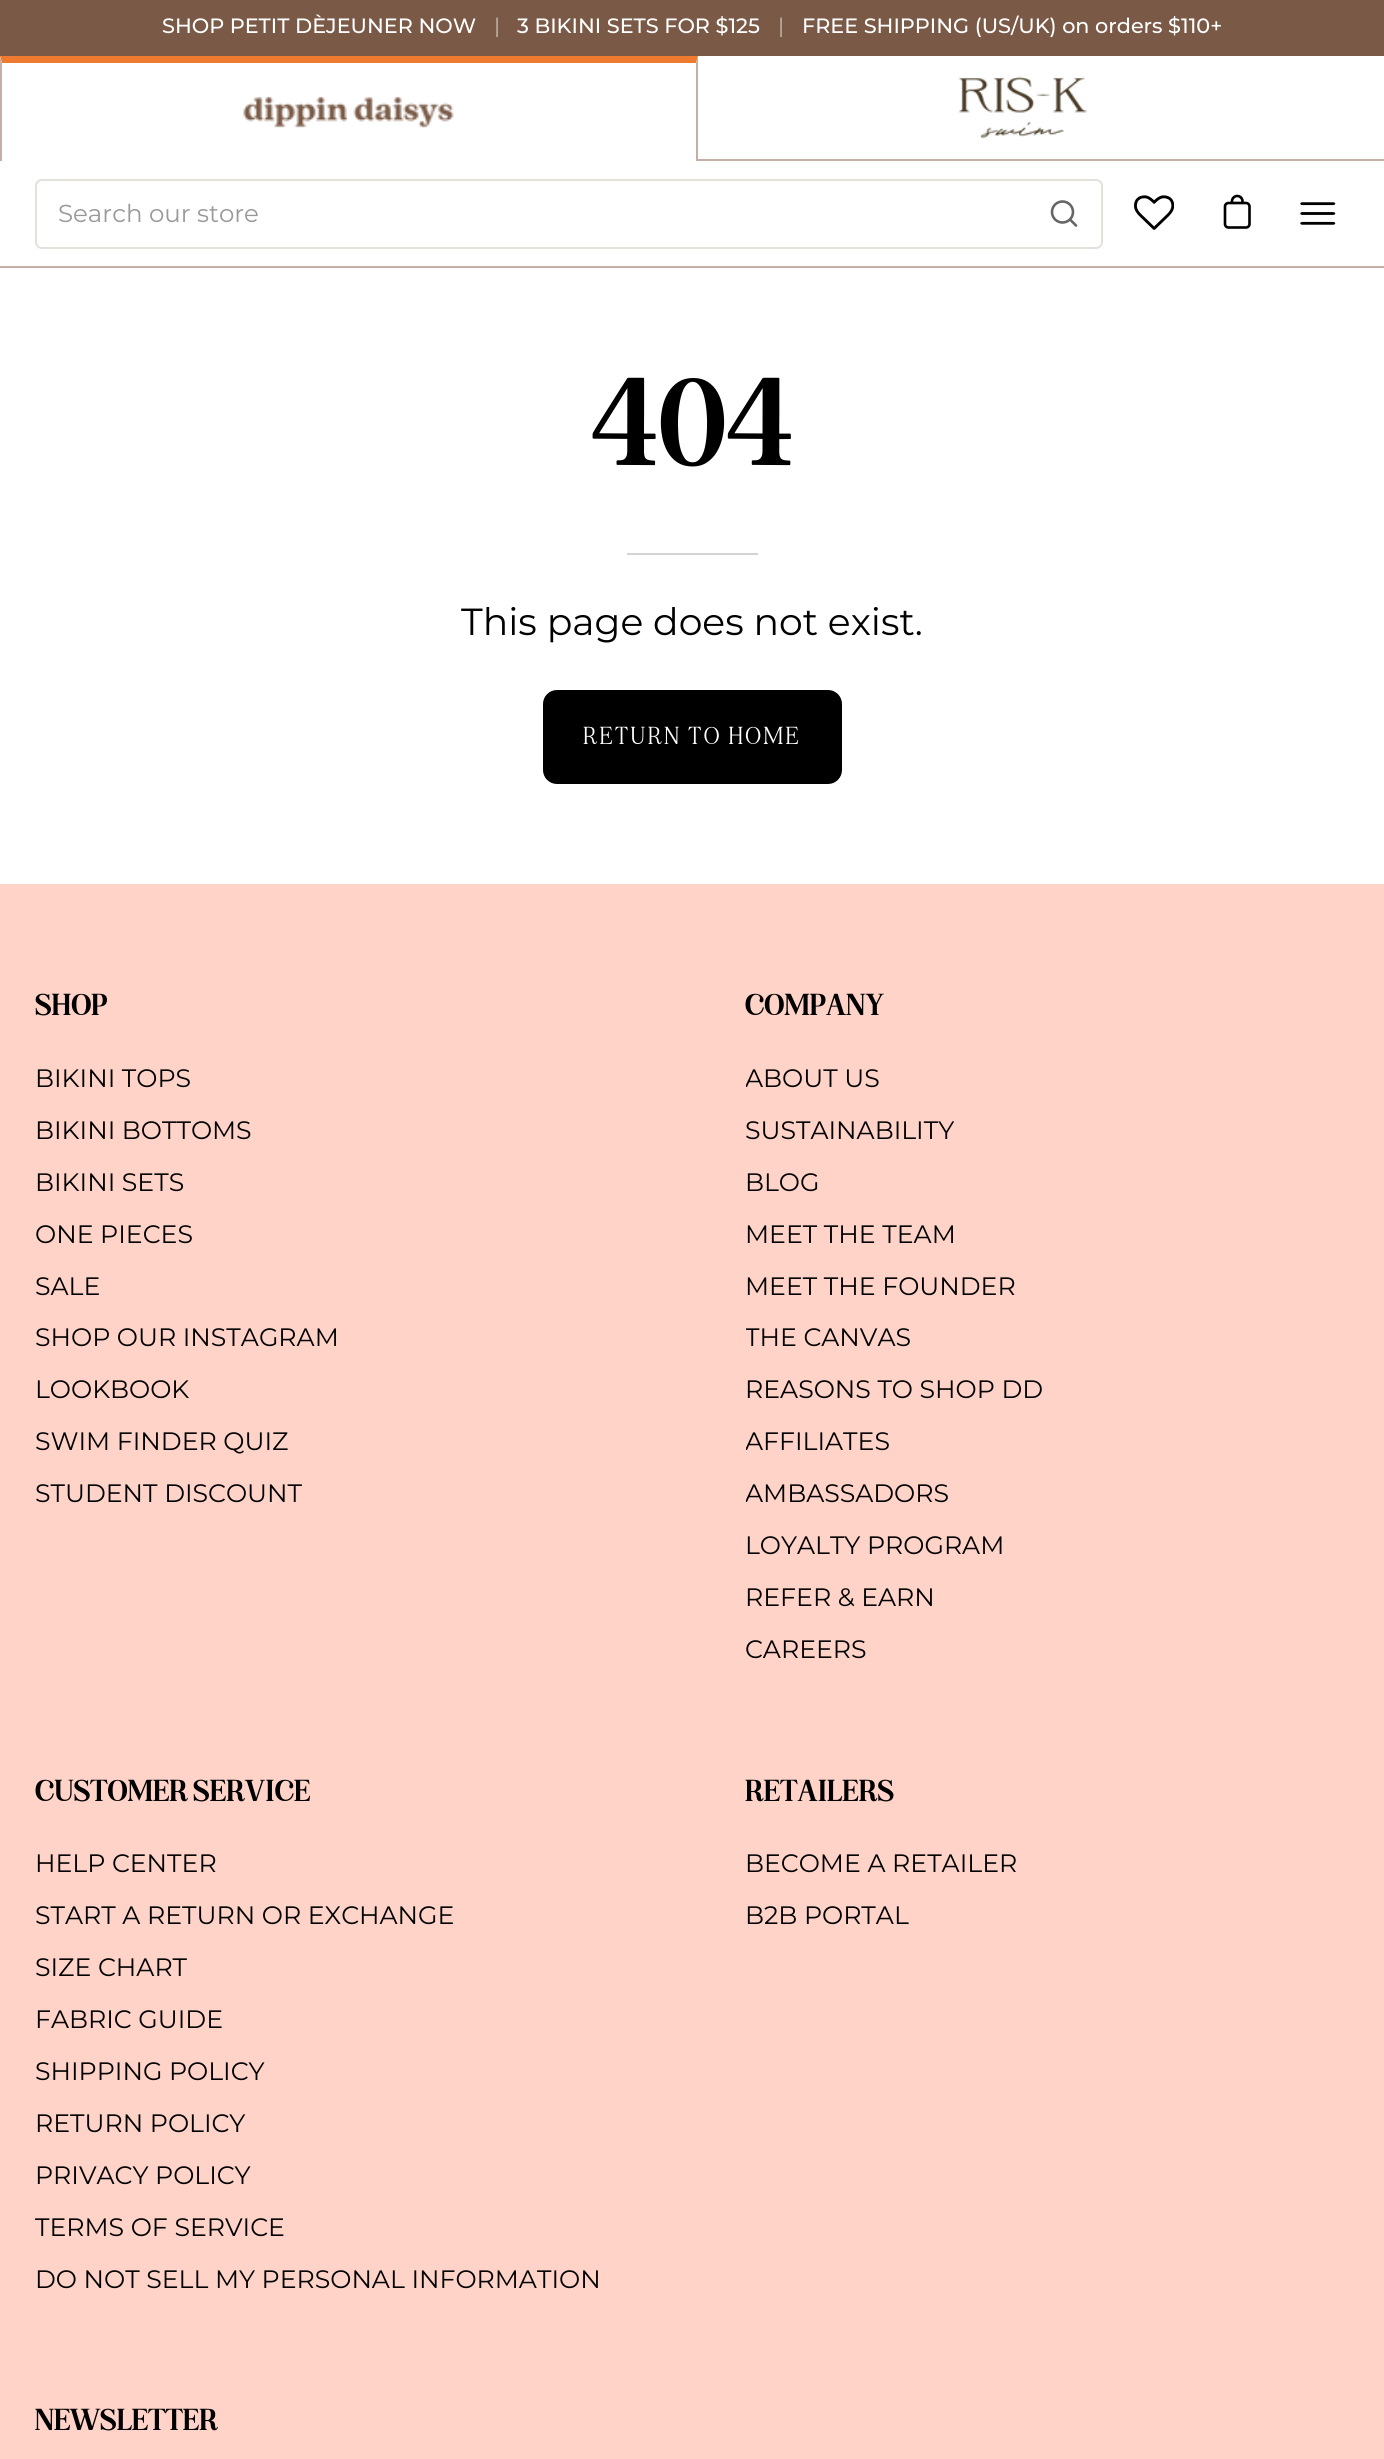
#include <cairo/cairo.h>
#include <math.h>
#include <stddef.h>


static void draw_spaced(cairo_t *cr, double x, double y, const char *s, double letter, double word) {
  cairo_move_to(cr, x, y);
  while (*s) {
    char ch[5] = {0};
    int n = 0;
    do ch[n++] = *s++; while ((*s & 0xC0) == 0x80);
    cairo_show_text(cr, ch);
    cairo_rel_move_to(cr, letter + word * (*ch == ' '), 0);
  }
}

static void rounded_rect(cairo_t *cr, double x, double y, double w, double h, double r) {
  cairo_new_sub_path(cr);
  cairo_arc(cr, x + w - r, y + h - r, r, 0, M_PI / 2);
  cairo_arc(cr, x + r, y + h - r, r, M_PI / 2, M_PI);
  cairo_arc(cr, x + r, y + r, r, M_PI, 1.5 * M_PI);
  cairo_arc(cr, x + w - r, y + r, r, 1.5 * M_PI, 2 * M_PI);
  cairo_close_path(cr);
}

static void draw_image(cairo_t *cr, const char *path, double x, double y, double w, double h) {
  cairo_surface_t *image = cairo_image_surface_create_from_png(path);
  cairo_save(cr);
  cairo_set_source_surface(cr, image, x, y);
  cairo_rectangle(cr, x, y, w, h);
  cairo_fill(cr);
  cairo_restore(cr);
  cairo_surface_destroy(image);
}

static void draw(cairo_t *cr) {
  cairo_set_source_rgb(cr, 1, 1, 1);
  cairo_paint(cr);
  cairo_set_source_rgb(cr, 122 / 255.0, 90 / 255.0, 71 / 255.0);
  cairo_rectangle(cr, 0, 0, 1384, 56);
  cairo_fill(cr);
  cairo_set_source_rgb(cr, 195 / 255.0, 175 / 255.0, 165 / 255.0);
  cairo_rectangle(cr, 0, 266, 1384, 2);
  cairo_fill(cr);
  cairo_rectangle(cr, 698, 159, 686, 2);
  cairo_fill(cr);
  cairo_set_source_rgb(cr, 238 / 255.0, 123 / 255.0, 48 / 255.0);
  cairo_new_path(cr);
  cairo_move_to(cr, 0, 56);
  cairo_line_to(cr, 698, 56);
  cairo_line_to(cr, 696, 63);
  cairo_line_to(cr, 2, 63);
  cairo_close_path(cr);
  cairo_fill(cr);
  cairo_set_source_rgb(cr, 195 / 255.0, 175 / 255.0, 165 / 255.0);
  cairo_new_path(cr);
  cairo_move_to(cr, 698, 56);
  cairo_line_to(cr, 698, 161);
  cairo_line_to(cr, 696, 161);
  cairo_line_to(cr, 696, 63);
  cairo_close_path(cr);
  cairo_fill(cr);
  cairo_new_path(cr);
  cairo_move_to(cr, 0, 161);
  cairo_line_to(cr, 0, 56);
  cairo_line_to(cr, 2, 63);
  cairo_line_to(cr, 2, 161);
  cairo_close_path(cr);
  cairo_fill(cr);
  draw_image(cr, "images/1.png", 243, 96, 211, 33);
  draw_image(cr, "images/2.png", 958, 76, 129, 63);
  cairo_arc(cr, 1062.5, 212, 10.5, 0, 2 * M_PI);
  cairo_set_source_rgb(cr, 102 / 255.0, 102 / 255.0, 102 / 255.0);
  cairo_set_line_width(cr, 2.6);
  cairo_stroke(cr);
  cairo_new_path(cr);
  cairo_move_to(cr, 1076, 225.5);
  cairo_line_to(cr, 1070, 219.5);
  cairo_set_line_cap(cr, CAIRO_LINE_CAP_ROUND);
  cairo_set_line_join(cr, CAIRO_LINE_JOIN_ROUND);
  cairo_stroke(cr);
  rounded_rect(cr, 36, 180, 1066, 68, 6);
  cairo_set_source_rgb(cr, 229 / 255.0, 225 / 255.0, 218 / 255.0);
  cairo_set_line_width(cr, 2);
  cairo_set_line_cap(cr, CAIRO_LINE_CAP_BUTT);
  cairo_set_line_join(cr, CAIRO_LINE_JOIN_MITER);
  cairo_stroke(cr);
  draw_image(cr, "images/3.png", 1134, 195, 40, 35);
  draw_image(cr, "images/4.png", 1223, 194, 28, 35);
  draw_image(cr, "images/5.png", 1300, 202, 36, 23);
  cairo_set_source_rgb(cr, 211 / 255.0, 211 / 255.0, 211 / 255.0);
  cairo_rectangle(cr, 627, 553, 131, 2);
  cairo_fill(cr);
  cairo_set_source_rgb(cr, 0, 0, 0);
  rounded_rect(cr, 544, 691, 297, 92, 13);
  cairo_fill_preserve(cr);
  cairo_stroke(cr);
  cairo_set_source_rgb(cr, 1, 211 / 255.0, 200 / 255.0);
  cairo_rectangle(cr, 0, 884, 1384, 1575);
  cairo_fill(cr);
  cairo_select_font_face(cr, "Montserrat Medium", CAIRO_FONT_SLANT_NORMAL, CAIRO_FONT_WEIGHT_NORMAL);
  cairo_set_font_size(cr, 20.75);
  cairo_set_source_rgb(cr, 1, 1, 1);
  cairo_move_to(cr, 162, 33);
  cairo_show_text(cr, "SHOP PETIT DÈJEUNER NOW");
  cairo_select_font_face(cr, "Montserrat", CAIRO_FONT_SLANT_NORMAL, CAIRO_FONT_WEIGHT_NORMAL);
  cairo_set_source_rgb(cr, 202 / 255.0, 189 / 255.0, 181 / 255.0);
  cairo_move_to(cr, 494, 33);
  cairo_show_text(cr, "|");
  cairo_select_font_face(cr, "Montserrat Medium", CAIRO_FONT_SLANT_NORMAL, CAIRO_FONT_WEIGHT_NORMAL);
  cairo_set_source_rgb(cr, 1, 1, 1);
  cairo_move_to(cr, 517, 33);
  cairo_show_text(cr, "3 BIKINI SETS FOR $125");
  cairo_select_font_face(cr, "Montserrat", CAIRO_FONT_SLANT_NORMAL, CAIRO_FONT_WEIGHT_NORMAL);
  cairo_set_source_rgb(cr, 202 / 255.0, 189 / 255.0, 181 / 255.0);
  cairo_move_to(cr, 778, 33);
  cairo_show_text(cr, "|");
  cairo_select_font_face(cr, "Montserrat Medium", CAIRO_FONT_SLANT_NORMAL, CAIRO_FONT_WEIGHT_NORMAL);
  cairo_set_source_rgb(cr, 1, 1, 1);
  cairo_move_to(cr, 802, 33);
  cairo_show_text(cr, "FREE SHIPPING (US/UK) on orders $110+");
  cairo_select_font_face(cr, "Montserrat", CAIRO_FONT_SLANT_NORMAL, CAIRO_FONT_WEIGHT_NORMAL);
  cairo_set_font_size(cr, 24.5);
  cairo_set_source_rgb(cr, 153 / 255.0, 153 / 255.0, 153 / 255.0);
  cairo_move_to(cr, 58, 222);
  cairo_show_text(cr, "Search our store");
  cairo_select_font_face(cr, "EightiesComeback", CAIRO_FONT_SLANT_NORMAL, CAIRO_FONT_WEIGHT_BOLD);
  cairo_set_font_size(cr, 113);
  cairo_set_source_rgb(cr, 0, 0, 0);
  cairo_move_to(cr, 591, 465);
  cairo_show_text(cr, "404");
  cairo_select_font_face(cr, "Montserrat", CAIRO_FONT_SLANT_NORMAL, CAIRO_FONT_WEIGHT_NORMAL);
  cairo_set_font_size(cr, 37.75);
  cairo_move_to(cr, 461, 635);
  cairo_show_text(cr, "This page does not exist.");
  cairo_select_font_face(cr, "EightiesComeback Light", CAIRO_FONT_SLANT_NORMAL, CAIRO_FONT_WEIGHT_NORMAL);
  cairo_set_font_size(cr, 22.5);
  cairo_set_source_rgb(cr, 1, 1, 1);
  draw_spaced(cr, 583, 744, "RETURN TO HOME", 2.75, 0);
  cairo_select_font_face(cr, "EightiesComeback", CAIRO_FONT_SLANT_NORMAL, CAIRO_FONT_WEIGHT_BOLD);
  cairo_set_font_size(cr, 27.75);
  cairo_set_source_rgb(cr, 0, 0, 0);
  cairo_move_to(cr, 35, 1015);
  cairo_show_text(cr, "SHOP");
  cairo_select_font_face(cr, "Montserrat", CAIRO_FONT_SLANT_NORMAL, CAIRO_FONT_WEIGHT_NORMAL);
  cairo_set_font_size(cr, 25.2);
  cairo_move_to(cr, 35, 1087);
  cairo_show_text(cr, "BIKINI TOPS");
  cairo_move_to(cr, 35, 1139);
  cairo_show_text(cr, "BIKINI BOTTOMS");
  cairo_move_to(cr, 35, 1191);
  cairo_show_text(cr, "BIKINI SETS");
  cairo_move_to(cr, 35, 1243);
  cairo_show_text(cr, "ONE PIECES");
  cairo_move_to(cr, 35, 1295);
  cairo_show_text(cr, "SALE");
  cairo_move_to(cr, 35, 1346);
  cairo_show_text(cr, "SHOP OUR INSTAGRAM");
  cairo_move_to(cr, 35, 1398);
  cairo_show_text(cr, "LOOKBOOK");
  cairo_move_to(cr, 35, 1450);
  cairo_show_text(cr, "SWIM FINDER QUIZ");
  cairo_move_to(cr, 35, 1502);
  cairo_show_text(cr, "STUDENT DISCOUNT");
  cairo_select_font_face(cr, "EightiesComeback", CAIRO_FONT_SLANT_NORMAL, CAIRO_FONT_WEIGHT_BOLD);
  cairo_set_font_size(cr, 27.75);
  cairo_move_to(cr, 745, 1015);
  cairo_show_text(cr, "COMPANY");
  cairo_save(cr);
  cairo_rectangle(cr, 746, 1059, 603, 611);
  cairo_clip(cr);
  cairo_select_font_face(cr, "Montserrat", CAIRO_FONT_SLANT_NORMAL, CAIRO_FONT_WEIGHT_NORMAL);
  cairo_set_font_size(cr, 25.2);
  cairo_move_to(cr, 745, 1087);
  cairo_show_text(cr, "ABOUT US");
  cairo_restore(cr);
  cairo_select_font_face(cr, "Montserrat", CAIRO_FONT_SLANT_NORMAL, CAIRO_FONT_WEIGHT_NORMAL);
  cairo_set_font_size(cr, 25.2);
  cairo_move_to(cr, 745, 1139);
  cairo_show_text(cr, "SUSTAINABILITY");
  cairo_move_to(cr, 745, 1191);
  cairo_show_text(cr, "BLOG");
  cairo_move_to(cr, 745, 1243);
  cairo_show_text(cr, "MEET THE TEAM");
  cairo_move_to(cr, 745, 1295);
  cairo_show_text(cr, "MEET THE FOUNDER");
  cairo_save(cr);
  cairo_rectangle(cr, 746, 1059, 603, 611);
  cairo_clip(cr);
  cairo_move_to(cr, 745, 1346);
  cairo_show_text(cr, "THE CANVAS");
  cairo_restore(cr);
  cairo_move_to(cr, 745, 1398);
  cairo_show_text(cr, "REASONS TO SHOP DD");
  cairo_save(cr);
  cairo_rectangle(cr, 746, 1059, 603, 611);
  cairo_clip(cr);
  cairo_move_to(cr, 745, 1450);
  cairo_show_text(cr, "AFFILIATES");
  cairo_move_to(cr, 745, 1502);
  cairo_show_text(cr, "AMBASSADORS");
  cairo_restore(cr);
  cairo_move_to(cr, 745, 1554);
  cairo_show_text(cr, "LOYALTY PROGRAM");
  cairo_move_to(cr, 745, 1606);
  cairo_show_text(cr, "REFER & EARN");
  cairo_move_to(cr, 745, 1658);
  cairo_show_text(cr, "CAREERS");
  cairo_select_font_face(cr, "EightiesComeback", CAIRO_FONT_SLANT_NORMAL, CAIRO_FONT_WEIGHT_BOLD);
  cairo_set_font_size(cr, 27.75);
  cairo_move_to(cr, 35, 1801);
  cairo_show_text(cr, "CUSTOMER SERVICE");
  cairo_select_font_face(cr, "Montserrat", CAIRO_FONT_SLANT_NORMAL, CAIRO_FONT_WEIGHT_NORMAL);
  cairo_set_font_size(cr, 25.2);
  cairo_move_to(cr, 35, 1872);
  cairo_show_text(cr, "HELP CENTER");
  cairo_move_to(cr, 35, 1924);
  cairo_show_text(cr, "START A RETURN OR EXCHANGE");
  cairo_move_to(cr, 35, 1976);
  cairo_show_text(cr, "SIZE CHART");
  cairo_move_to(cr, 35, 2028);
  cairo_show_text(cr, "FABRIC GUIDE");
  cairo_move_to(cr, 35, 2080);
  cairo_show_text(cr, "SHIPPING POLICY");
  cairo_move_to(cr, 35, 2132);
  cairo_show_text(cr, "RETURN POLICY");
  cairo_move_to(cr, 35, 2184);
  cairo_show_text(cr, "PRIVACY POLICY");
  cairo_move_to(cr, 35, 2236);
  cairo_show_text(cr, "TERMS OF SERVICE");
  cairo_move_to(cr, 35, 2288);
  cairo_show_text(cr, "DO NOT SELL MY PERSONAL INFORMATION");
  cairo_select_font_face(cr, "EightiesComeback", CAIRO_FONT_SLANT_NORMAL, CAIRO_FONT_WEIGHT_BOLD);
  cairo_set_font_size(cr, 27.75);
  cairo_move_to(cr, 745, 1801);
  cairo_show_text(cr, "RETAILERS");
  cairo_select_font_face(cr, "Montserrat", CAIRO_FONT_SLANT_NORMAL, CAIRO_FONT_WEIGHT_NORMAL);
  cairo_set_font_size(cr, 25.2);
  cairo_move_to(cr, 745, 1872);
  cairo_show_text(cr, "BECOME A RETAILER");
  cairo_move_to(cr, 745, 1924);
  cairo_show_text(cr, "B2B PORTAL");
  cairo_select_font_face(cr, "EightiesComeback", CAIRO_FONT_SLANT_NORMAL, CAIRO_FONT_WEIGHT_BOLD);
  cairo_set_font_size(cr, 27.75);
  cairo_move_to(cr, 35, 2430);
  cairo_show_text(cr, "NEWSLETTER");
}

int main(void) {
  cairo_surface_t *surface = cairo_image_surface_create(CAIRO_FORMAT_RGB24, 1384, 2459);
  cairo_t *cr = cairo_create(surface);
  cairo_font_options_t *options = cairo_font_options_create();
  cairo_font_options_set_hint_metrics(options, CAIRO_HINT_METRICS_OFF);
  cairo_font_options_set_hint_style(options, CAIRO_HINT_STYLE_NONE);
  cairo_set_font_options(cr, options);
  cairo_set_miter_limit(cr, 4);
  draw(cr);
  cairo_surface_write_to_png(surface, "out.png");
  cairo_font_options_destroy(options);
  cairo_destroy(cr);
  cairo_surface_destroy(surface);
  return 0;
}
